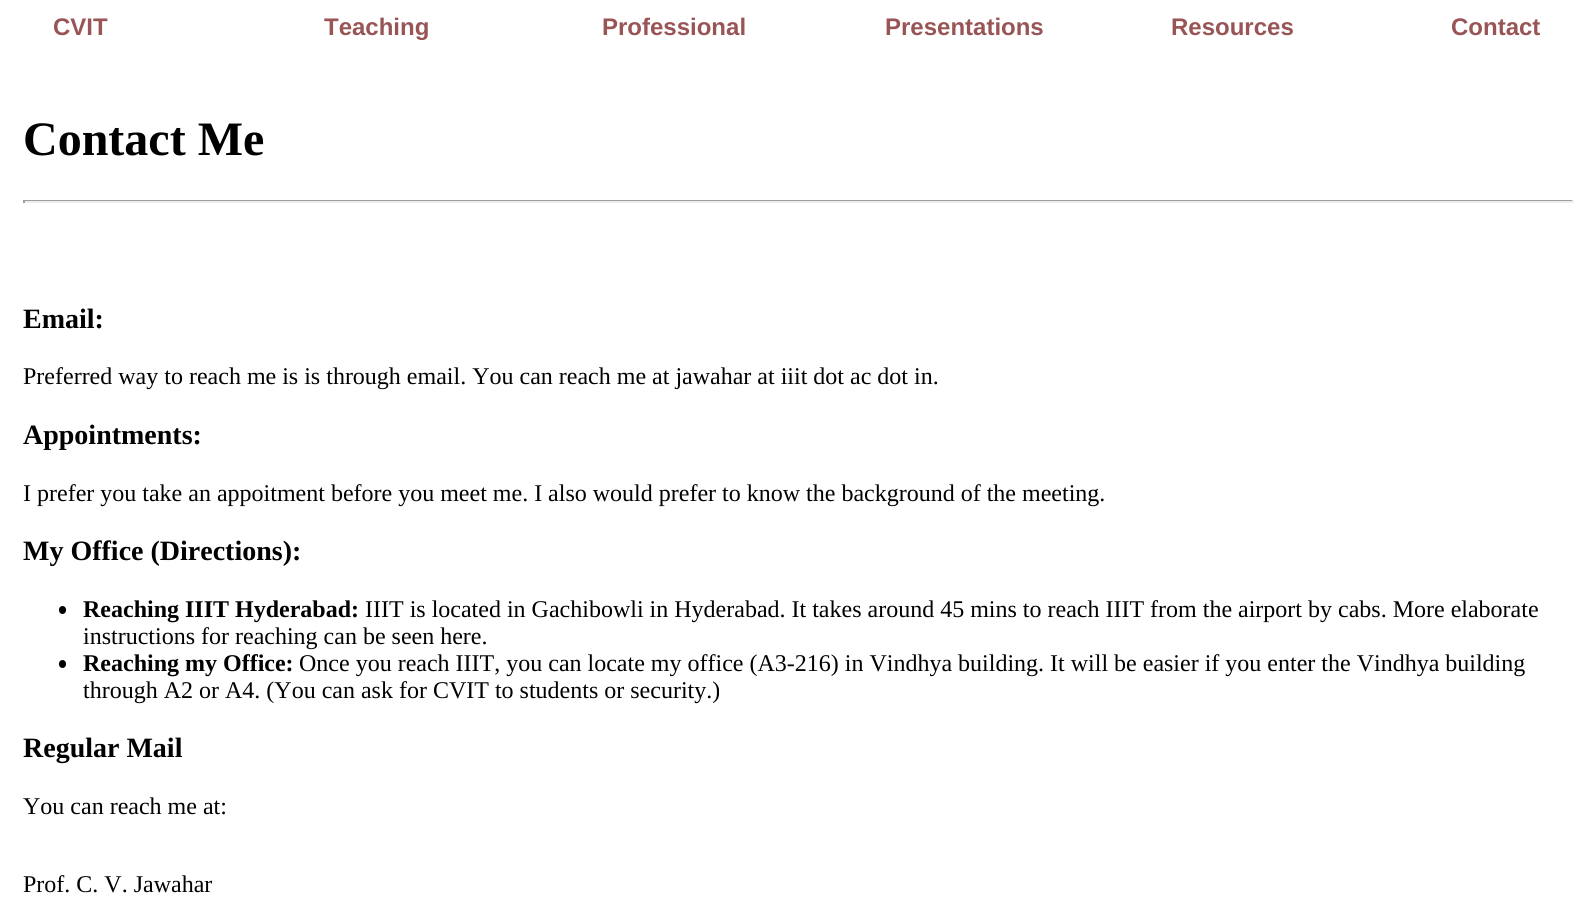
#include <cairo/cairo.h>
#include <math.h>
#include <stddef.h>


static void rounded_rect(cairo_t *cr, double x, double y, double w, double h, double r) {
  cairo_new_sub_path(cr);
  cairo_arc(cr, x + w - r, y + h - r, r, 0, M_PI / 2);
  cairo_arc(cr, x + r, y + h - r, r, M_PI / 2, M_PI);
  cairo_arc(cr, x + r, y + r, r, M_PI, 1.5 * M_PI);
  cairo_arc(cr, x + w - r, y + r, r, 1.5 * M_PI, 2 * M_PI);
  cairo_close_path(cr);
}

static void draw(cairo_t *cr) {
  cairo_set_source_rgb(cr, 1, 1, 1);
  cairo_paint(cr);
  cairo_set_source_rgb(cr, 159 / 255.0, 159 / 255.0, 159 / 255.0);
  cairo_rectangle(cr, 23, 200, 1551, 1);
  cairo_fill(cr);
  cairo_set_source_rgb(cr, 238 / 255.0, 238 / 255.0, 238 / 255.0);
  cairo_rectangle(cr, 1572, 200, 2, 3);
  cairo_fill(cr);
  cairo_rectangle(cr, 23, 201, 1551, 2);
  cairo_fill(cr);
  cairo_set_source_rgb(cr, 159 / 255.0, 159 / 255.0, 159 / 255.0);
  cairo_rectangle(cr, 23, 200, 2, 3);
  cairo_fill(cr);
  cairo_set_source_rgb(cr, 0, 0, 0);
  rounded_rect(cr, 59, 606, 7, 8, 3.5);
  cairo_fill(cr);
  rounded_rect(cr, 59, 660, 7, 8, 3.5);
  cairo_fill(cr);
  cairo_select_font_face(cr, "Liberation Sans", CAIRO_FONT_SLANT_NORMAL, CAIRO_FONT_WEIGHT_BOLD);
  cairo_set_font_size(cr, 24);
  cairo_set_source_rgb(cr, 153 / 255.0, 85 / 255.0, 85 / 255.0);
  cairo_move_to(cr, 53, 35);
  cairo_show_text(cr, "CVIT");
  cairo_move_to(cr, 324, 35);
  cairo_show_text(cr, "Teaching");
  cairo_move_to(cr, 602, 35);
  cairo_show_text(cr, "Professional");
  cairo_move_to(cr, 885, 35);
  cairo_show_text(cr, "Presentations");
  cairo_move_to(cr, 1171, 35);
  cairo_show_text(cr, "Resources");
  cairo_move_to(cr, 1451, 35);
  cairo_show_text(cr, "Contact");
  cairo_select_font_face(cr, "Liberation Serif", CAIRO_FONT_SLANT_NORMAL, CAIRO_FONT_WEIGHT_BOLD);
  cairo_set_font_size(cr, 48);
  cairo_set_source_rgb(cr, 0, 0, 0);
  cairo_move_to(cr, 23, 155);
  cairo_show_text(cr, "Contact Me");
  cairo_set_font_size(cr, 28);
  cairo_move_to(cr, 23, 328);
  cairo_show_text(cr, "Email:");
  cairo_select_font_face(cr, "Liberation Serif", CAIRO_FONT_SLANT_NORMAL, CAIRO_FONT_WEIGHT_NORMAL);
  cairo_set_font_size(cr, 24);
  cairo_move_to(cr, 23, 384);
  cairo_show_text(cr, "Preferred way to reach me is is through email. You can reach me at jawahar at iiit dot ac dot in.");
  cairo_select_font_face(cr, "Liberation Serif", CAIRO_FONT_SLANT_NORMAL, CAIRO_FONT_WEIGHT_BOLD);
  cairo_set_font_size(cr, 28);
  cairo_move_to(cr, 23, 444);
  cairo_show_text(cr, "Appointments:");
  cairo_select_font_face(cr, "Liberation Serif", CAIRO_FONT_SLANT_NORMAL, CAIRO_FONT_WEIGHT_NORMAL);
  cairo_set_font_size(cr, 24);
  cairo_move_to(cr, 23, 501);
  cairo_show_text(cr, "I prefer you take an appoitment before you meet me. I also would prefer to know the background of the meeting.");
  cairo_select_font_face(cr, "Liberation Serif", CAIRO_FONT_SLANT_NORMAL, CAIRO_FONT_WEIGHT_BOLD);
  cairo_set_font_size(cr, 28);
  cairo_move_to(cr, 23, 560);
  cairo_show_text(cr, "My Office (Directions):");
  cairo_set_font_size(cr, 24);
  cairo_move_to(cr, 83, 617);
  cairo_show_text(cr, "Reaching IIIT Hyderabad:");
  cairo_select_font_face(cr, "Liberation Serif", CAIRO_FONT_SLANT_NORMAL, CAIRO_FONT_WEIGHT_NORMAL);
  cairo_move_to(cr, 365, 617);
  cairo_show_text(cr, "IIIT is located in Gachibowli in Hyderabad. It takes around 45 mins to reach IIIT from the airport by cabs. More elaborate");
  cairo_move_to(cr, 83, 644);
  cairo_show_text(cr, "instructions for reaching can be seen here.");
  cairo_select_font_face(cr, "Liberation Serif", CAIRO_FONT_SLANT_NORMAL, CAIRO_FONT_WEIGHT_BOLD);
  cairo_move_to(cr, 83, 671);
  cairo_show_text(cr, "Reaching my Office:");
  cairo_select_font_face(cr, "Liberation Serif", CAIRO_FONT_SLANT_NORMAL, CAIRO_FONT_WEIGHT_NORMAL);
  cairo_move_to(cr, 299, 671);
  cairo_show_text(cr, "Once you reach IIIT, you can locate my office (A3-216) in Vindhya building. It will be easier if you enter the Vindhya building");
  cairo_move_to(cr, 83, 698);
  cairo_show_text(cr, "through A2 or A4. (You can ask for CVIT to students or security.)");
  cairo_select_font_face(cr, "Liberation Serif", CAIRO_FONT_SLANT_NORMAL, CAIRO_FONT_WEIGHT_BOLD);
  cairo_set_font_size(cr, 28);
  cairo_move_to(cr, 23, 757);
  cairo_show_text(cr, "Regular Mail");
  cairo_select_font_face(cr, "Liberation Serif", CAIRO_FONT_SLANT_NORMAL, CAIRO_FONT_WEIGHT_NORMAL);
  cairo_set_font_size(cr, 24);
  cairo_move_to(cr, 23, 814);
  cairo_show_text(cr, "You can reach me at:");
  cairo_move_to(cr, 23, 892);
  cairo_show_text(cr, "Prof. C. V. Jawahar");
}

int main(void) {
  cairo_surface_t *surface = cairo_image_surface_create(CAIRO_FORMAT_RGB24, 1593, 909);
  cairo_t *cr = cairo_create(surface);
  cairo_font_options_t *options = cairo_font_options_create();
  cairo_font_options_set_hint_metrics(options, CAIRO_HINT_METRICS_OFF);
  cairo_font_options_set_hint_style(options, CAIRO_HINT_STYLE_NONE);
  cairo_set_font_options(cr, options);
  cairo_set_miter_limit(cr, 4);
  draw(cr);
  cairo_surface_write_to_png(surface, "out.png");
  cairo_font_options_destroy(options);
  cairo_destroy(cr);
  cairo_surface_destroy(surface);
  return 0;
}
